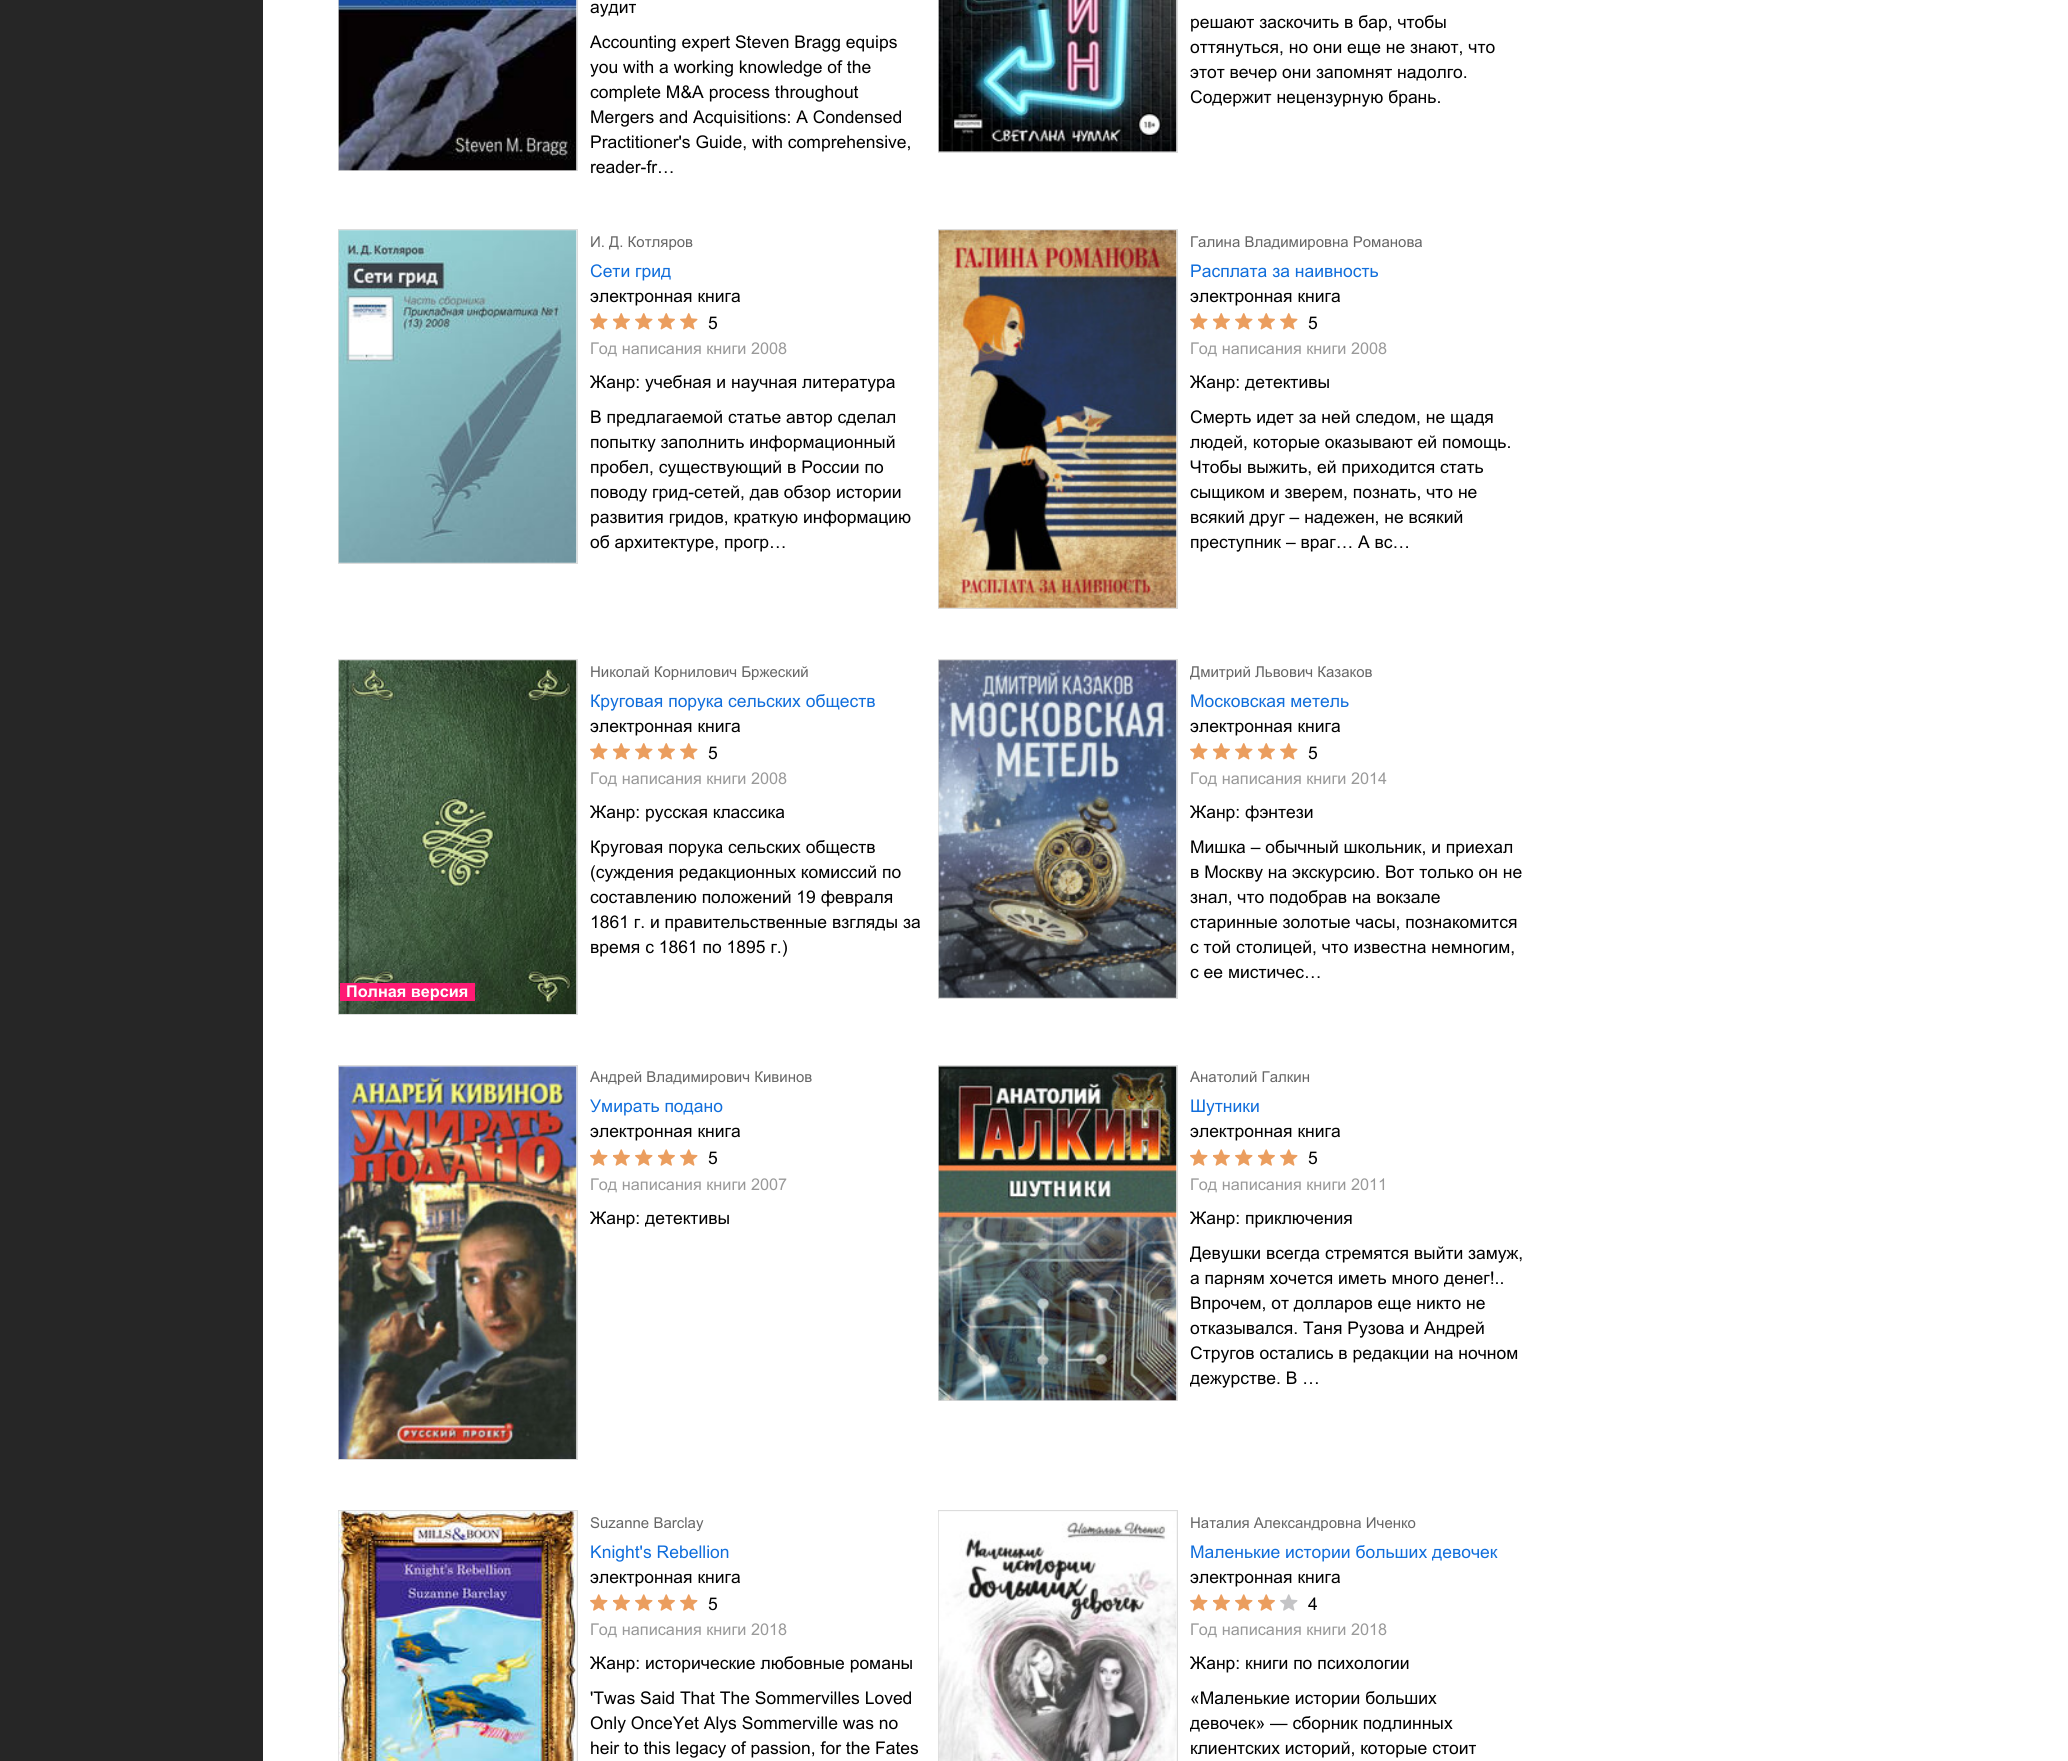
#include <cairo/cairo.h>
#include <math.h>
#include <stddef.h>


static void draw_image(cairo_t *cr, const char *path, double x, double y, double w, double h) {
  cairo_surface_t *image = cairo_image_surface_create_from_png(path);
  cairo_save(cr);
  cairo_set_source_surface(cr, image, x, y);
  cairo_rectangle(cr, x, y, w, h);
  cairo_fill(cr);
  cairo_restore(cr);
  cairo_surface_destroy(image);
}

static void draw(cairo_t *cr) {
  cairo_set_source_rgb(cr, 1, 1, 1);
  cairo_paint(cr);
  cairo_set_source_rgb(cr, 38 / 255.0, 38 / 255.0, 38 / 255.0);
  cairo_rectangle(cr, 0, 0, 263, 1761);
  cairo_fill(cr);
  cairo_set_source_rgb(cr, 244 / 255.0, 244 / 255.0, 244 / 255.0);
  cairo_rectangle(cr, 576, 0, 1, 170);
  cairo_fill(cr);
  cairo_rectangle(cr, 338.5, -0.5, 239, 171);
  cairo_set_source_rgb(cr, 220 / 255.0, 220 / 255.0, 220 / 255.0);
  cairo_set_line_width(cr, 1);
  cairo_stroke(cr);
  draw_image(cr, "images/1.png", 338, 0, 239, 171);
  cairo_set_source_rgb(cr, 244 / 255.0, 244 / 255.0, 244 / 255.0);
  cairo_rectangle(cr, 938.5, -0.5, 239, 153);
  cairo_fill_preserve(cr);
  cairo_set_source_rgb(cr, 220 / 255.0, 220 / 255.0, 220 / 255.0);
  cairo_stroke(cr);
  draw_image(cr, "images/2.png", 938, 0, 239, 152);
  cairo_set_source_rgb(cr, 244 / 255.0, 244 / 255.0, 244 / 255.0);
  cairo_rectangle(cr, 338.5, 229.5, 239, 334);
  cairo_fill_preserve(cr);
  cairo_set_source_rgb(cr, 220 / 255.0, 220 / 255.0, 220 / 255.0);
  cairo_stroke(cr);
  draw_image(cr, "images/3.png", 338, 230, 239, 333);
  draw_image(cr, "images/4.png", 590, 313, 18, 17);
  draw_image(cr, "images/5.png", 613, 313, 17, 17);
  draw_image(cr, "images/4.png", 635, 313, 18, 17);
  draw_image(cr, "images/5.png", 658, 313, 17, 17);
  draw_image(cr, "images/4.png", 680, 313, 18, 17);
  cairo_set_source_rgb(cr, 244 / 255.0, 244 / 255.0, 244 / 255.0);
  cairo_rectangle(cr, 938.5, 229.5, 239, 379);
  cairo_fill_preserve(cr);
  cairo_set_source_rgb(cr, 220 / 255.0, 220 / 255.0, 220 / 255.0);
  cairo_stroke(cr);
  draw_image(cr, "images/6.png", 938, 230, 239, 378);
  draw_image(cr, "images/4.png", 1190, 313, 18, 17);
  draw_image(cr, "images/5.png", 1213, 313, 17, 17);
  draw_image(cr, "images/4.png", 1235, 313, 18, 17);
  draw_image(cr, "images/5.png", 1258, 313, 17, 17);
  draw_image(cr, "images/4.png", 1280, 313, 18, 17);
  draw_image(cr, "images/4.png", 590, 743, 18, 17);
  draw_image(cr, "images/5.png", 613, 743, 17, 17);
  draw_image(cr, "images/4.png", 635, 743, 18, 17);
  draw_image(cr, "images/5.png", 658, 743, 17, 17);
  draw_image(cr, "images/4.png", 680, 743, 18, 17);
  cairo_set_source_rgb(cr, 244 / 255.0, 244 / 255.0, 244 / 255.0);
  cairo_rectangle(cr, 338.5, 659.5, 239, 355);
  cairo_fill_preserve(cr);
  cairo_set_source_rgb(cr, 220 / 255.0, 220 / 255.0, 220 / 255.0);
  cairo_stroke(cr);
  draw_image(cr, "images/7.png", 338, 660, 239, 354);
  cairo_set_source_rgb(cr, 1, 26 / 255.0, 116 / 255.0);
  cairo_rectangle(cr, 340, 983, 135, 18);
  cairo_fill(cr);
  cairo_set_source_rgb(cr, 244 / 255.0, 244 / 255.0, 244 / 255.0);
  cairo_rectangle(cr, 938.5, 659.5, 239, 339);
  cairo_fill_preserve(cr);
  cairo_set_source_rgb(cr, 220 / 255.0, 220 / 255.0, 220 / 255.0);
  cairo_stroke(cr);
  draw_image(cr, "images/8.png", 938, 660, 239, 338);
  draw_image(cr, "images/4.png", 1190, 743, 18, 17);
  draw_image(cr, "images/5.png", 1213, 743, 17, 17);
  draw_image(cr, "images/4.png", 1235, 743, 18, 17);
  draw_image(cr, "images/5.png", 1258, 743, 17, 17);
  draw_image(cr, "images/4.png", 1280, 743, 18, 17);
  cairo_set_source_rgb(cr, 244 / 255.0, 244 / 255.0, 244 / 255.0);
  cairo_rectangle(cr, 338.5, 1065.5, 239, 394);
  cairo_fill_preserve(cr);
  cairo_set_source_rgb(cr, 220 / 255.0, 220 / 255.0, 220 / 255.0);
  cairo_stroke(cr);
  draw_image(cr, "images/9.png", 338, 1066, 239, 393);
  draw_image(cr, "images/10.png", 590, 1149, 18, 17);
  draw_image(cr, "images/11.png", 613, 1149, 17, 17);
  draw_image(cr, "images/10.png", 635, 1149, 18, 17);
  draw_image(cr, "images/11.png", 658, 1149, 17, 17);
  draw_image(cr, "images/10.png", 680, 1149, 18, 17);
  cairo_set_source_rgb(cr, 244 / 255.0, 244 / 255.0, 244 / 255.0);
  cairo_rectangle(cr, 938.5, 1065.5, 239, 335);
  cairo_fill_preserve(cr);
  cairo_set_source_rgb(cr, 220 / 255.0, 220 / 255.0, 220 / 255.0);
  cairo_stroke(cr);
  draw_image(cr, "images/12.png", 938, 1066, 239, 335);
  draw_image(cr, "images/10.png", 1190, 1149, 18, 17);
  draw_image(cr, "images/11.png", 1213, 1149, 17, 17);
  draw_image(cr, "images/10.png", 1235, 1149, 18, 17);
  draw_image(cr, "images/11.png", 1258, 1149, 17, 17);
  draw_image(cr, "images/10.png", 1280, 1149, 18, 17);
  cairo_set_source_rgb(cr, 244 / 255.0, 244 / 255.0, 244 / 255.0);
  cairo_rectangle(cr, 338.5, 1510.5, 239, 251);
  cairo_fill_preserve(cr);
  cairo_set_source_rgb(cr, 220 / 255.0, 220 / 255.0, 220 / 255.0);
  cairo_stroke(cr);
  draw_image(cr, "images/13.png", 338, 1511, 238, 250);
  draw_image(cr, "images/10.png", 590, 1594, 18, 17);
  draw_image(cr, "images/11.png", 613, 1594, 17, 17);
  draw_image(cr, "images/10.png", 635, 1594, 18, 17);
  draw_image(cr, "images/11.png", 658, 1594, 17, 17);
  draw_image(cr, "images/10.png", 680, 1594, 18, 17);
  cairo_set_source_rgb(cr, 244 / 255.0, 244 / 255.0, 244 / 255.0);
  cairo_rectangle(cr, 938.5, 1510.5, 239, 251);
  cairo_fill_preserve(cr);
  cairo_set_source_rgb(cr, 220 / 255.0, 220 / 255.0, 220 / 255.0);
  cairo_stroke(cr);
  draw_image(cr, "images/14.png", 938, 1511, 239, 250);
  draw_image(cr, "images/10.png", 1190, 1594, 18, 17);
  draw_image(cr, "images/11.png", 1213, 1594, 17, 17);
  draw_image(cr, "images/10.png", 1235, 1594, 18, 17);
  draw_image(cr, "images/11.png", 1258, 1594, 17, 17);
  draw_image(cr, "images/15.png", 1280, 1594, 18, 17);
  cairo_select_font_face(cr, "Arial", CAIRO_FONT_SLANT_NORMAL, CAIRO_FONT_WEIGHT_NORMAL);
  cairo_set_font_size(cr, 17.5);
  cairo_set_source_rgb(cr, 0, 0, 0);
  cairo_move_to(cr, 590, 13);
  cairo_show_text(cr, "аудит");
  cairo_move_to(cr, 590, 48);
  cairo_show_text(cr, "Accounting expert Steven Bragg equips");
  cairo_move_to(cr, 590, 73);
  cairo_show_text(cr, "you with a working knowledge of the");
  cairo_move_to(cr, 590, 98);
  cairo_show_text(cr, "complete M&A process throughout");
  cairo_move_to(cr, 590, 123);
  cairo_show_text(cr, "Mergers and Acquisitions: A Condensed");
  cairo_move_to(cr, 590, 148);
  cairo_show_text(cr, "Practitioner's Guide, with comprehensive,");
  cairo_move_to(cr, 590, 173);
  cairo_show_text(cr, "reader-fr…");
  cairo_move_to(cr, 1190, 28);
  cairo_show_text(cr, "решают заскочить в бар, чтобы");
  cairo_move_to(cr, 1190, 53);
  cairo_show_text(cr, "оттянуться, но они еще не знают, что");
  cairo_move_to(cr, 1190, 78);
  cairo_show_text(cr, "этот вечер они запомнят надолго.");
  cairo_move_to(cr, 1190, 103);
  cairo_show_text(cr, "Содержит нецензурную брань.");
  cairo_set_font_size(cr, 15);
  cairo_set_source_rgb(cr, 102 / 255.0, 102 / 255.0, 102 / 255.0);
  cairo_move_to(cr, 590, 247);
  cairo_show_text(cr, "И. Д. Котляров");
  cairo_set_font_size(cr, 17.5);
  cairo_set_source_rgb(cr, 16 / 255.0, 110 / 255.0, 220 / 255.0);
  cairo_move_to(cr, 590, 277);
  cairo_show_text(cr, "Сети грид");
  cairo_set_source_rgb(cr, 0, 0, 0);
  cairo_move_to(cr, 590, 302);
  cairo_show_text(cr, "электронная книга");
  cairo_move_to(cr, 708, 329);
  cairo_show_text(cr, "5");
  cairo_set_font_size(cr, 16.25);
  cairo_set_source_rgb(cr, 153 / 255.0, 153 / 255.0, 153 / 255.0);
  cairo_move_to(cr, 590, 354);
  cairo_show_text(cr, "Год написания книги 2008");
  cairo_set_font_size(cr, 17.5);
  cairo_set_source_rgb(cr, 0, 0, 0);
  cairo_move_to(cr, 590, 388);
  cairo_show_text(cr, "Жанр: учебная и научная литература");
  cairo_move_to(cr, 590, 423);
  cairo_show_text(cr, "В предлагаемой статье автор сделал");
  cairo_move_to(cr, 590, 448);
  cairo_show_text(cr, "попытку заполнить информационный");
  cairo_move_to(cr, 590, 473);
  cairo_show_text(cr, "пробел, существующий в России по");
  cairo_move_to(cr, 590, 498);
  cairo_show_text(cr, "поводу грид-сетей, дав обзор истории");
  cairo_move_to(cr, 590, 523);
  cairo_show_text(cr, "развития гридов, краткую информацию");
  cairo_move_to(cr, 590, 548);
  cairo_show_text(cr, "об архитектуре, прогр…");
  cairo_set_font_size(cr, 15);
  cairo_set_source_rgb(cr, 102 / 255.0, 102 / 255.0, 102 / 255.0);
  cairo_move_to(cr, 1190, 247);
  cairo_show_text(cr, "Галина Владимировна Романова");
  cairo_set_font_size(cr, 17.5);
  cairo_set_source_rgb(cr, 16 / 255.0, 110 / 255.0, 220 / 255.0);
  cairo_move_to(cr, 1190, 277);
  cairo_show_text(cr, "Расплата за наивность");
  cairo_set_source_rgb(cr, 0, 0, 0);
  cairo_move_to(cr, 1190, 302);
  cairo_show_text(cr, "электронная книга");
  cairo_move_to(cr, 1308, 329);
  cairo_show_text(cr, "5");
  cairo_set_font_size(cr, 16.25);
  cairo_set_source_rgb(cr, 153 / 255.0, 153 / 255.0, 153 / 255.0);
  cairo_move_to(cr, 1190, 354);
  cairo_show_text(cr, "Год написания книги 2008");
  cairo_set_font_size(cr, 17.5);
  cairo_set_source_rgb(cr, 0, 0, 0);
  cairo_move_to(cr, 1190, 388);
  cairo_show_text(cr, "Жанр: детективы");
  cairo_move_to(cr, 1190, 423);
  cairo_show_text(cr, "Смерть идет за ней следом, не щадя");
  cairo_move_to(cr, 1190, 448);
  cairo_show_text(cr, "людей, которые оказывают ей помощь.");
  cairo_move_to(cr, 1190, 473);
  cairo_show_text(cr, "Чтобы выжить, ей приходится стать");
  cairo_move_to(cr, 1190, 498);
  cairo_show_text(cr, "сыщиком и зверем, познать, что не");
  cairo_move_to(cr, 1190, 523);
  cairo_show_text(cr, "всякий друг – надежен, не всякий");
  cairo_move_to(cr, 1190, 548);
  cairo_show_text(cr, "преступник – враг… А вс…");
  cairo_set_font_size(cr, 15);
  cairo_set_source_rgb(cr, 102 / 255.0, 102 / 255.0, 102 / 255.0);
  cairo_move_to(cr, 590, 677);
  cairo_show_text(cr, "Николай Корнилович Бржеский");
  cairo_set_font_size(cr, 17.5);
  cairo_set_source_rgb(cr, 16 / 255.0, 110 / 255.0, 220 / 255.0);
  cairo_move_to(cr, 590, 707);
  cairo_show_text(cr, "Круговая порука сельских обществ");
  cairo_set_source_rgb(cr, 0, 0, 0);
  cairo_move_to(cr, 590, 732);
  cairo_show_text(cr, "электронная книга");
  cairo_move_to(cr, 708, 759);
  cairo_show_text(cr, "5");
  cairo_set_font_size(cr, 16.25);
  cairo_set_source_rgb(cr, 153 / 255.0, 153 / 255.0, 153 / 255.0);
  cairo_move_to(cr, 590, 784);
  cairo_show_text(cr, "Год написания книги 2008");
  cairo_set_font_size(cr, 17.5);
  cairo_set_source_rgb(cr, 0, 0, 0);
  cairo_move_to(cr, 590, 818);
  cairo_show_text(cr, "Жанр: русская классика");
  cairo_move_to(cr, 590, 853);
  cairo_show_text(cr, "Круговая порука сельских обществ");
  cairo_move_to(cr, 590, 878);
  cairo_show_text(cr, "(суждения редакционных комиссий по");
  cairo_move_to(cr, 590, 903);
  cairo_show_text(cr, "составлению положений 19 февраля");
  cairo_move_to(cr, 590, 928);
  cairo_show_text(cr, "1861 г. и правительственные взгляды за");
  cairo_move_to(cr, 590, 953);
  cairo_show_text(cr, "время с 1861 по 1895 г.)");
  cairo_select_font_face(cr, "Arial", CAIRO_FONT_SLANT_NORMAL, CAIRO_FONT_WEIGHT_BOLD);
  cairo_set_font_size(cr, 16.25);
  cairo_set_source_rgb(cr, 1, 1, 1);
  cairo_move_to(cr, 346, 997);
  cairo_show_text(cr, "Полная версия");
  cairo_select_font_face(cr, "Arial", CAIRO_FONT_SLANT_NORMAL, CAIRO_FONT_WEIGHT_NORMAL);
  cairo_set_font_size(cr, 15);
  cairo_set_source_rgb(cr, 102 / 255.0, 102 / 255.0, 102 / 255.0);
  cairo_move_to(cr, 1190, 677);
  cairo_show_text(cr, "Дмитрий Львович Казаков");
  cairo_set_font_size(cr, 17.5);
  cairo_set_source_rgb(cr, 16 / 255.0, 110 / 255.0, 220 / 255.0);
  cairo_move_to(cr, 1190, 707);
  cairo_show_text(cr, "Московская метель");
  cairo_set_source_rgb(cr, 0, 0, 0);
  cairo_move_to(cr, 1190, 732);
  cairo_show_text(cr, "электронная книга");
  cairo_move_to(cr, 1308, 759);
  cairo_show_text(cr, "5");
  cairo_set_font_size(cr, 16.25);
  cairo_set_source_rgb(cr, 153 / 255.0, 153 / 255.0, 153 / 255.0);
  cairo_move_to(cr, 1190, 784);
  cairo_show_text(cr, "Год написания книги 2014");
  cairo_set_font_size(cr, 17.5);
  cairo_set_source_rgb(cr, 0, 0, 0);
  cairo_move_to(cr, 1190, 818);
  cairo_show_text(cr, "Жанр: фэнтези");
  cairo_move_to(cr, 1190, 853);
  cairo_show_text(cr, "Мишка – обычный школьник, и приехал");
  cairo_move_to(cr, 1190, 878);
  cairo_show_text(cr, "в Москву на экскурсию. Вот только он не");
  cairo_move_to(cr, 1190, 903);
  cairo_show_text(cr, "знал, что подобрав на вокзале");
  cairo_move_to(cr, 1190, 928);
  cairo_show_text(cr, "старинные золотые часы, познакомится");
  cairo_move_to(cr, 1190, 953);
  cairo_show_text(cr, "с той столицей, что известна немногим,");
  cairo_move_to(cr, 1190, 978);
  cairo_show_text(cr, "с ее мистичес…");
  cairo_set_font_size(cr, 15);
  cairo_set_source_rgb(cr, 102 / 255.0, 102 / 255.0, 102 / 255.0);
  cairo_move_to(cr, 590, 1082);
  cairo_show_text(cr, "Андрей Владимирович Кивинов");
  cairo_set_font_size(cr, 17.5);
  cairo_set_source_rgb(cr, 16 / 255.0, 110 / 255.0, 220 / 255.0);
  cairo_move_to(cr, 590, 1112);
  cairo_show_text(cr, "Умирать подано");
  cairo_set_source_rgb(cr, 0, 0, 0);
  cairo_move_to(cr, 590, 1137);
  cairo_show_text(cr, "электронная книга");
  cairo_move_to(cr, 708, 1164);
  cairo_show_text(cr, "5");
  cairo_set_font_size(cr, 16.25);
  cairo_set_source_rgb(cr, 153 / 255.0, 153 / 255.0, 153 / 255.0);
  cairo_move_to(cr, 590, 1190);
  cairo_show_text(cr, "Год написания книги 2007");
  cairo_set_font_size(cr, 17.5);
  cairo_set_source_rgb(cr, 0, 0, 0);
  cairo_move_to(cr, 590, 1224);
  cairo_show_text(cr, "Жанр: детективы");
  cairo_set_font_size(cr, 15);
  cairo_set_source_rgb(cr, 102 / 255.0, 102 / 255.0, 102 / 255.0);
  cairo_move_to(cr, 1190, 1082);
  cairo_show_text(cr, "Анатолий Галкин");
  cairo_set_font_size(cr, 17.5);
  cairo_set_source_rgb(cr, 16 / 255.0, 110 / 255.0, 220 / 255.0);
  cairo_move_to(cr, 1190, 1112);
  cairo_show_text(cr, "Шутники");
  cairo_set_source_rgb(cr, 0, 0, 0);
  cairo_move_to(cr, 1190, 1137);
  cairo_show_text(cr, "электронная книга");
  cairo_move_to(cr, 1308, 1164);
  cairo_show_text(cr, "5");
  cairo_set_font_size(cr, 16.25);
  cairo_set_source_rgb(cr, 153 / 255.0, 153 / 255.0, 153 / 255.0);
  cairo_move_to(cr, 1190, 1190);
  cairo_show_text(cr, "Год написания книги 2011");
  cairo_set_font_size(cr, 17.5);
  cairo_set_source_rgb(cr, 0, 0, 0);
  cairo_move_to(cr, 1190, 1224);
  cairo_show_text(cr, "Жанр: приключения");
  cairo_move_to(cr, 1190, 1259);
  cairo_show_text(cr, "Девушки всегда стремятся выйти замуж,");
  cairo_move_to(cr, 1190, 1284);
  cairo_show_text(cr, "а парням хочется иметь много денег!..");
  cairo_move_to(cr, 1190, 1309);
  cairo_show_text(cr, "Впрочем, от долларов еще никто не");
  cairo_move_to(cr, 1190, 1334);
  cairo_show_text(cr, "отказывался. Таня Рузова и Андрей");
  cairo_move_to(cr, 1190, 1359);
  cairo_show_text(cr, "Стругов остались в редакции на ночном");
  cairo_move_to(cr, 1190, 1384);
  cairo_show_text(cr, "дежурстве. В …");
  cairo_set_font_size(cr, 15);
  cairo_set_source_rgb(cr, 102 / 255.0, 102 / 255.0, 102 / 255.0);
  cairo_move_to(cr, 590, 1528);
  cairo_show_text(cr, "Suzanne Barclay");
  cairo_set_font_size(cr, 17.5);
  cairo_set_source_rgb(cr, 16 / 255.0, 110 / 255.0, 220 / 255.0);
  cairo_move_to(cr, 590, 1558);
  cairo_show_text(cr, "Knight's Rebellion");
  cairo_set_source_rgb(cr, 0, 0, 0);
  cairo_move_to(cr, 590, 1583);
  cairo_show_text(cr, "электронная книга");
  cairo_move_to(cr, 708, 1610);
  cairo_show_text(cr, "5");
  cairo_set_font_size(cr, 16.25);
  cairo_set_source_rgb(cr, 153 / 255.0, 153 / 255.0, 153 / 255.0);
  cairo_move_to(cr, 590, 1635);
  cairo_show_text(cr, "Год написания книги 2018");
  cairo_set_font_size(cr, 17.5);
  cairo_set_source_rgb(cr, 0, 0, 0);
  cairo_move_to(cr, 590, 1669);
  cairo_show_text(cr, "Жанр: исторические любовные романы");
  cairo_move_to(cr, 590, 1704);
  cairo_show_text(cr, "'Twas Said That The Sommervilles Loved");
  cairo_move_to(cr, 590, 1729);
  cairo_show_text(cr, "Only OnceYet Alys Sommerville was no");
  cairo_move_to(cr, 590, 1754);
  cairo_show_text(cr, "heir to this legacy of passion, for the Fates");
  cairo_set_font_size(cr, 15);
  cairo_set_source_rgb(cr, 102 / 255.0, 102 / 255.0, 102 / 255.0);
  cairo_move_to(cr, 1190, 1528);
  cairo_show_text(cr, "Наталия Александровна Иченко");
  cairo_set_font_size(cr, 17.5);
  cairo_set_source_rgb(cr, 16 / 255.0, 110 / 255.0, 220 / 255.0);
  cairo_move_to(cr, 1190, 1558);
  cairo_show_text(cr, "Маленькие истории больших девочек");
  cairo_set_source_rgb(cr, 0, 0, 0);
  cairo_move_to(cr, 1190, 1583);
  cairo_show_text(cr, "электронная книга");
  cairo_move_to(cr, 1308, 1610);
  cairo_show_text(cr, "4");
  cairo_set_font_size(cr, 16.25);
  cairo_set_source_rgb(cr, 153 / 255.0, 153 / 255.0, 153 / 255.0);
  cairo_move_to(cr, 1190, 1635);
  cairo_show_text(cr, "Год написания книги 2018");
  cairo_set_font_size(cr, 17.5);
  cairo_set_source_rgb(cr, 0, 0, 0);
  cairo_move_to(cr, 1190, 1669);
  cairo_show_text(cr, "Жанр: книги по психологии");
  cairo_move_to(cr, 1190, 1704);
  cairo_show_text(cr, "«Маленькие истории больших");
  cairo_move_to(cr, 1190, 1729);
  cairo_show_text(cr, "девочек» — сборник подлинных");
  cairo_move_to(cr, 1190, 1754);
  cairo_show_text(cr, "клиентских историй, которые стоит");
}

int main(void) {
  cairo_surface_t *surface = cairo_image_surface_create(CAIRO_FORMAT_RGB24, 2068, 1761);
  cairo_t *cr = cairo_create(surface);
  cairo_font_options_t *options = cairo_font_options_create();
  cairo_font_options_set_hint_metrics(options, CAIRO_HINT_METRICS_OFF);
  cairo_font_options_set_hint_style(options, CAIRO_HINT_STYLE_NONE);
  cairo_set_font_options(cr, options);
  cairo_set_miter_limit(cr, 4);
  draw(cr);
  cairo_surface_write_to_png(surface, "out.png");
  cairo_font_options_destroy(options);
  cairo_destroy(cr);
  cairo_surface_destroy(surface);
  return 0;
}
